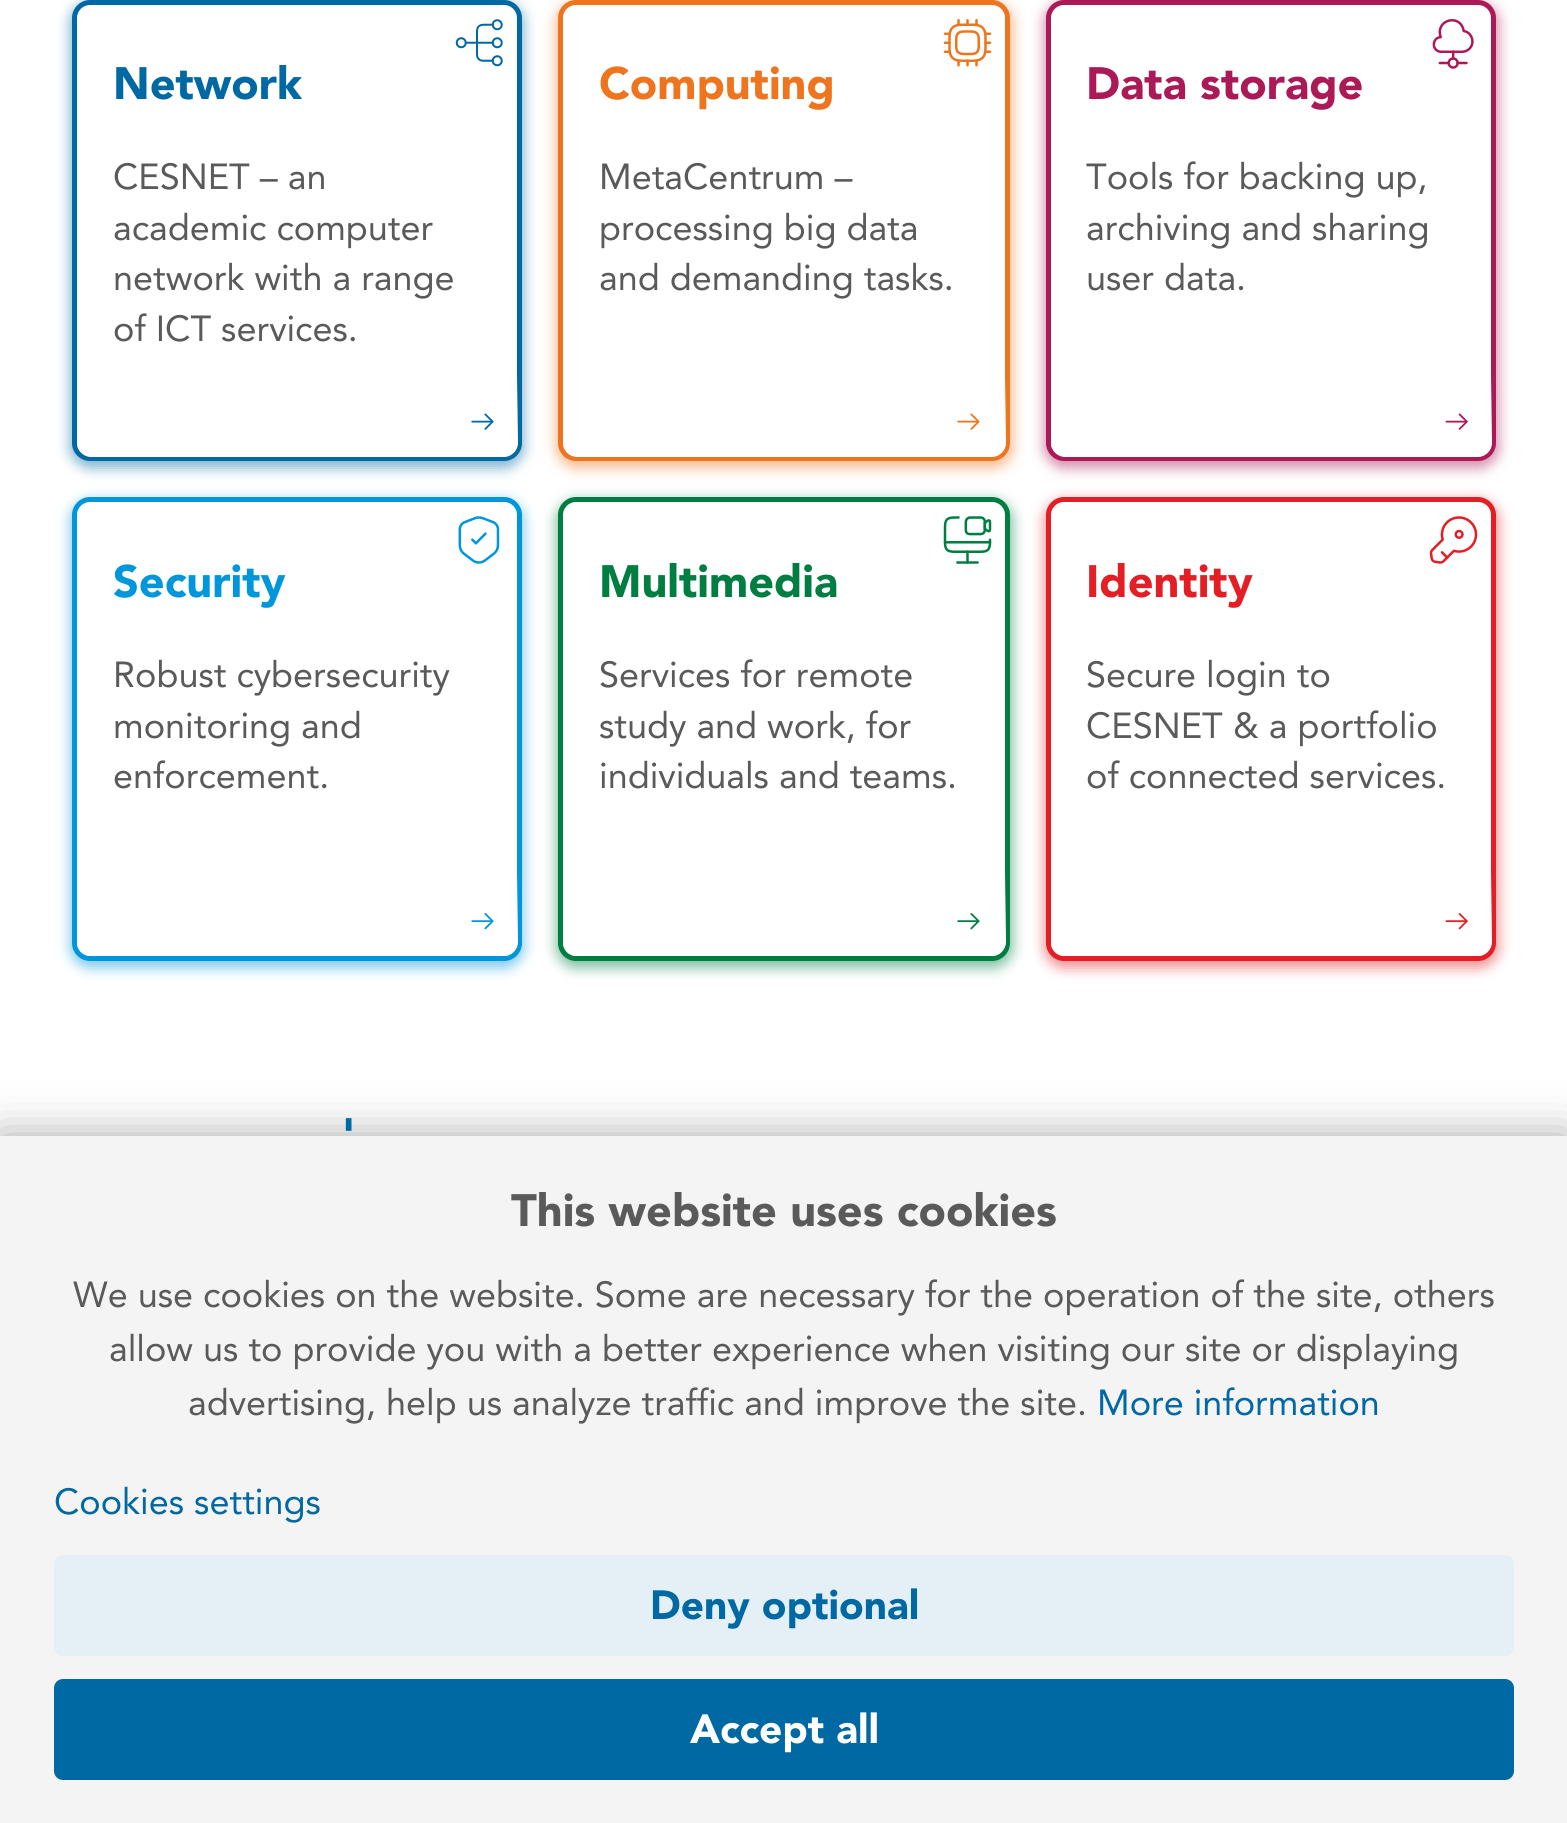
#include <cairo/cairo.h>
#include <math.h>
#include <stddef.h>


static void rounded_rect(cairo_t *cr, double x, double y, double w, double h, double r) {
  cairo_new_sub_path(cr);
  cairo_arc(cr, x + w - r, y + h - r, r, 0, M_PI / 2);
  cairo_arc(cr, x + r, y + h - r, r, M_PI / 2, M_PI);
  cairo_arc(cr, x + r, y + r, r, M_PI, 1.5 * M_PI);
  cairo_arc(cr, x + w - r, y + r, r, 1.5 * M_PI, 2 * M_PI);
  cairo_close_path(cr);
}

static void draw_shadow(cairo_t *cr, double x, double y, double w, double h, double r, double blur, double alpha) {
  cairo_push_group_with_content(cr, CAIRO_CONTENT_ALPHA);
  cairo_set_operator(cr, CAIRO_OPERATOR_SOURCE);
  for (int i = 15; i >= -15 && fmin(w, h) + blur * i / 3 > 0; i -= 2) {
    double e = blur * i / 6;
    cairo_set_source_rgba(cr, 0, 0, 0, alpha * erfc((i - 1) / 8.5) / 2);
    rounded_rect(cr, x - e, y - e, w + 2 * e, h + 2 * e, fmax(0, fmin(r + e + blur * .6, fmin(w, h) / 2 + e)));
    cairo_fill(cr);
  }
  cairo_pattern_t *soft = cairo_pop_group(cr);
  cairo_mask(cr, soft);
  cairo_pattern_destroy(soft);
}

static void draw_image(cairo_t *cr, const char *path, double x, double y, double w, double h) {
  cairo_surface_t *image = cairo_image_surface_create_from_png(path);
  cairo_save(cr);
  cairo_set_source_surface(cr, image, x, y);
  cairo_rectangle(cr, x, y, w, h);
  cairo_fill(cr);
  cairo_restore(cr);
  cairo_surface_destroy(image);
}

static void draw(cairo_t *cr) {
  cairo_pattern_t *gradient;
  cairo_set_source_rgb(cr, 1, 1, 1);
  cairo_paint(cr);
  cairo_set_source_rgb(cr, 0, 104 / 255.0, 162 / 255.0);
  draw_shadow(cr, 70, 2, 454, 466, 20, 6.5, 0.5);
  cairo_set_source_rgb(cr, 1, 1, 1);
  rounded_rect(cr, 74.5, 2.5, 445, 456, 15.5);
  cairo_fill_preserve(cr);
  cairo_set_source_rgb(cr, 0, 104 / 255.0, 162 / 255.0);
  cairo_set_line_width(cr, 5);
  cairo_stroke(cr);
  draw_image(cr, "images/1.png", 455, 19, 48, 48);
  gradient = cairo_pattern_create_linear(297, 484, 297, 376);
  cairo_pattern_add_color_stop_rgba(gradient, 0.4, 1, 1, 1, 1);
  cairo_pattern_add_color_stop_rgba(gradient, 1, 1, 1, 1, 0);
  cairo_set_source(cr, gradient);
  cairo_pattern_destroy(gradient);
  cairo_new_path(cr);
  cairo_move_to(cr, 77, 376);
  cairo_line_to(cr, 518, 376);
  cairo_line_to(cr, 518, 443);
  cairo_curve_to(cr, 518, 450.5, 511.5, 457, 504, 457);
  cairo_line_to(cr, 91, 457);
  cairo_curve_to(cr, 83.5, 457, 77, 450.5, 77, 443);
  cairo_close_path(cr);
  cairo_fill(cr);
  draw_image(cr, "images/2.png", 471, 413, 23, 17);
  cairo_set_source_rgb(cr, 238 / 255.0, 116 / 255.0, 29 / 255.0);
  draw_shadow(cr, 556, 2, 457, 466, 20, 6.5, 0.5);
  cairo_set_source_rgb(cr, 1, 1, 1);
  rounded_rect(cr, 560.5, 2.5, 447, 456, 15.5);
  cairo_fill_preserve(cr);
  cairo_set_source_rgb(cr, 238 / 255.0, 116 / 255.0, 29 / 255.0);
  cairo_stroke(cr);
  draw_image(cr, "images/3.png", 943, 19, 49, 48);
  gradient = cairo_pattern_create_linear(784, 484, 784, 376);
  cairo_pattern_add_color_stop_rgba(gradient, 0.4, 1, 1, 1, 1);
  cairo_pattern_add_color_stop_rgba(gradient, 1, 1, 1, 1, 0);
  cairo_set_source(cr, gradient);
  cairo_pattern_destroy(gradient);
  cairo_new_path(cr);
  cairo_move_to(cr, 563, 376);
  cairo_line_to(cr, 1006, 376);
  cairo_line_to(cr, 1006, 443);
  cairo_curve_to(cr, 1006, 450.5, 999.5, 457, 992, 457);
  cairo_line_to(cr, 577, 457);
  cairo_curve_to(cr, 569.5, 457, 563, 450.5, 563, 443);
  cairo_close_path(cr);
  cairo_fill(cr);
  draw_image(cr, "images/4.png", 957, 413, 23, 17);
  cairo_set_source_rgb(cr, 171 / 255.0, 26 / 255.0, 87 / 255.0);
  draw_shadow(cr, 1044, 2, 455, 466, 20, 6.5, 0.5);
  cairo_set_source_rgb(cr, 1, 1, 1);
  rounded_rect(cr, 1048.5, 2.5, 445, 456, 15.5);
  cairo_fill_preserve(cr);
  cairo_set_source_rgb(cr, 171 / 255.0, 26 / 255.0, 87 / 255.0);
  cairo_stroke(cr);
  draw_image(cr, "images/5.png", 1432, 19, 42, 50);
  gradient = cairo_pattern_create_linear(1271, 484, 1271, 376);
  cairo_pattern_add_color_stop_rgba(gradient, 0.4, 1, 1, 1, 1);
  cairo_pattern_add_color_stop_rgba(gradient, 1, 1, 1, 1, 0);
  cairo_set_source(cr, gradient);
  cairo_pattern_destroy(gradient);
  cairo_new_path(cr);
  cairo_move_to(cr, 1051, 376);
  cairo_line_to(cr, 1492, 376);
  cairo_line_to(cr, 1492, 443);
  cairo_curve_to(cr, 1492, 450.5, 1485.5, 457, 1478, 457);
  cairo_line_to(cr, 1065, 457);
  cairo_curve_to(cr, 1057.5, 457, 1051, 450.5, 1051, 443);
  cairo_close_path(cr);
  cairo_fill(cr);
  draw_image(cr, "images/6.png", 1445, 413, 23, 17);
  cairo_set_source_rgb(cr, 0, 150 / 255.0, 219 / 255.0);
  draw_shadow(cr, 70, 500, 454, 468, 20, 6.5, 0.5);
  cairo_set_source_rgb(cr, 1, 1, 1);
  rounded_rect(cr, 74.5, 499.5, 445, 459, 15.5);
  cairo_fill_preserve(cr);
  cairo_set_source_rgb(cr, 0, 150 / 255.0, 219 / 255.0);
  cairo_stroke(cr);
  draw_image(cr, "images/7.png", 458, 516, 42, 48);
  gradient = cairo_pattern_create_linear(297, 983, 297, 873);
  cairo_pattern_add_color_stop_rgba(gradient, 0.4, 1, 1, 1, 1);
  cairo_pattern_add_color_stop_rgba(gradient, 1, 1, 1, 1, 0);
  cairo_set_source(cr, gradient);
  cairo_pattern_destroy(gradient);
  cairo_new_path(cr);
  cairo_move_to(cr, 77, 873);
  cairo_line_to(cr, 518, 873);
  cairo_line_to(cr, 518, 942);
  cairo_curve_to(cr, 518, 949.5, 511.5, 956, 504, 956);
  cairo_line_to(cr, 91, 956);
  cairo_curve_to(cr, 83.5, 956, 77, 949.5, 77, 942);
  cairo_close_path(cr);
  cairo_fill(cr);
  draw_image(cr, "images/8.png", 471, 913, 23, 17);
  cairo_set_source_rgb(cr, 0, 126 / 255.0, 66 / 255.0);
  draw_shadow(cr, 556, 500, 457, 468, 20, 6.5, 0.5);
  cairo_set_source_rgb(cr, 1, 1, 1);
  rounded_rect(cr, 560.5, 499.5, 447, 459, 15.5);
  cairo_fill_preserve(cr);
  cairo_set_source_rgb(cr, 0, 126 / 255.0, 66 / 255.0);
  cairo_stroke(cr);
  draw_image(cr, "images/9.png", 943, 516, 49, 48);
  gradient = cairo_pattern_create_linear(784, 983, 784, 873);
  cairo_pattern_add_color_stop_rgba(gradient, 0.4, 1, 1, 1, 1);
  cairo_pattern_add_color_stop_rgba(gradient, 1, 1, 1, 1, 0);
  cairo_set_source(cr, gradient);
  cairo_pattern_destroy(gradient);
  cairo_new_path(cr);
  cairo_move_to(cr, 563, 873);
  cairo_line_to(cr, 1006, 873);
  cairo_line_to(cr, 1006, 942);
  cairo_curve_to(cr, 1006, 949.5, 999.5, 956, 992, 956);
  cairo_line_to(cr, 577, 956);
  cairo_curve_to(cr, 569.5, 956, 563, 949.5, 563, 942);
  cairo_close_path(cr);
  cairo_fill(cr);
  draw_image(cr, "images/10.png", 957, 913, 23, 17);
  cairo_set_source_rgb(cr, 227 / 255.0, 30 / 255.0, 36 / 255.0);
  draw_shadow(cr, 1044, 500, 455, 468, 20, 6.5, 0.5);
  cairo_set_source_rgb(cr, 1, 1, 1);
  rounded_rect(cr, 1048.5, 499.5, 445, 459, 15.5);
  cairo_fill_preserve(cr);
  cairo_set_source_rgb(cr, 227 / 255.0, 30 / 255.0, 36 / 255.0);
  cairo_stroke(cr);
  draw_image(cr, "images/11.png", 1429, 516, 49, 48);
  gradient = cairo_pattern_create_linear(1271, 983, 1271, 873);
  cairo_pattern_add_color_stop_rgba(gradient, 0.4, 1, 1, 1, 1);
  cairo_pattern_add_color_stop_rgba(gradient, 1, 1, 1, 1, 0);
  cairo_set_source(cr, gradient);
  cairo_pattern_destroy(gradient);
  cairo_new_path(cr);
  cairo_move_to(cr, 1051, 873);
  cairo_line_to(cr, 1492, 873);
  cairo_line_to(cr, 1492, 942);
  cairo_curve_to(cr, 1492, 949.5, 1485.5, 956, 1478, 956);
  cairo_line_to(cr, 1065, 956);
  cairo_curve_to(cr, 1057.5, 956, 1051, 949.5, 1051, 942);
  cairo_close_path(cr);
  cairo_fill(cr);
  draw_image(cr, "images/12.png", 1445, 913, 23, 17);
  cairo_set_source_rgb(cr, 170 / 255.0, 170 / 255.0, 170 / 255.0);
  draw_shadow(cr, 0, 1136, 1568, 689, 0, 22.5, 1);
  cairo_set_source_rgb(cr, 244 / 255.0, 244 / 255.0, 244 / 255.0);
  cairo_rectangle(cr, 0, 1136, 1567, 687);
  cairo_fill(cr);
  cairo_set_source_rgb(cr, 229 / 255.0, 240 / 255.0, 246 / 255.0);
  rounded_rect(cr, 54, 1555, 1460, 101, 9);
  cairo_fill(cr);
  cairo_set_source_rgb(cr, 0, 104 / 255.0, 162 / 255.0);
  rounded_rect(cr, 54, 1679, 1460, 101, 9);
  cairo_fill(cr);
  cairo_select_font_face(cr, "Avenir Black", CAIRO_FONT_SLANT_NORMAL, CAIRO_FONT_WEIGHT_NORMAL);
  cairo_set_font_size(cr, 45);
  cairo_move_to(cr, 113, 99);
  cairo_show_text(cr, "Network");
  cairo_select_font_face(cr, "Avenir", CAIRO_FONT_SLANT_NORMAL, CAIRO_FONT_WEIGHT_NORMAL);
  cairo_set_font_size(cr, 36);
  cairo_set_source_rgb(cr, 90 / 255.0, 90 / 255.0, 90 / 255.0);
  cairo_move_to(cr, 113, 189);
  cairo_show_text(cr, "CESNET – an");
  cairo_move_to(cr, 113, 240);
  cairo_show_text(cr, "academic computer");
  cairo_move_to(cr, 113, 290);
  cairo_show_text(cr, "network with a range");
  cairo_move_to(cr, 113, 341);
  cairo_show_text(cr, "of ICT services.");
  cairo_select_font_face(cr, "Avenir Black", CAIRO_FONT_SLANT_NORMAL, CAIRO_FONT_WEIGHT_NORMAL);
  cairo_set_font_size(cr, 45);
  cairo_set_source_rgb(cr, 238 / 255.0, 116 / 255.0, 29 / 255.0);
  cairo_move_to(cr, 599, 99);
  cairo_show_text(cr, "Computing");
  cairo_select_font_face(cr, "Avenir", CAIRO_FONT_SLANT_NORMAL, CAIRO_FONT_WEIGHT_NORMAL);
  cairo_set_font_size(cr, 36);
  cairo_set_source_rgb(cr, 90 / 255.0, 90 / 255.0, 90 / 255.0);
  cairo_move_to(cr, 599, 189);
  cairo_show_text(cr, "MetaCentrum –");
  cairo_move_to(cr, 599, 240);
  cairo_show_text(cr, "processing big data");
  cairo_move_to(cr, 599, 290);
  cairo_show_text(cr, "and demanding tasks.");
  cairo_select_font_face(cr, "Avenir Black", CAIRO_FONT_SLANT_NORMAL, CAIRO_FONT_WEIGHT_NORMAL);
  cairo_set_font_size(cr, 45);
  cairo_set_source_rgb(cr, 171 / 255.0, 26 / 255.0, 87 / 255.0);
  cairo_move_to(cr, 1086, 99);
  cairo_show_text(cr, "Data storage");
  cairo_select_font_face(cr, "Avenir", CAIRO_FONT_SLANT_NORMAL, CAIRO_FONT_WEIGHT_NORMAL);
  cairo_set_font_size(cr, 36);
  cairo_set_source_rgb(cr, 90 / 255.0, 90 / 255.0, 90 / 255.0);
  cairo_move_to(cr, 1086, 189);
  cairo_show_text(cr, "Tools for backing up,");
  cairo_move_to(cr, 1086, 240);
  cairo_show_text(cr, "archiving and sharing");
  cairo_move_to(cr, 1086, 290);
  cairo_show_text(cr, "user data.");
  cairo_select_font_face(cr, "Avenir Black", CAIRO_FONT_SLANT_NORMAL, CAIRO_FONT_WEIGHT_NORMAL);
  cairo_set_font_size(cr, 45);
  cairo_set_source_rgb(cr, 0, 150 / 255.0, 219 / 255.0);
  cairo_move_to(cr, 113, 597);
  cairo_show_text(cr, "Security");
  cairo_select_font_face(cr, "Avenir", CAIRO_FONT_SLANT_NORMAL, CAIRO_FONT_WEIGHT_NORMAL);
  cairo_set_font_size(cr, 36);
  cairo_set_source_rgb(cr, 90 / 255.0, 90 / 255.0, 90 / 255.0);
  cairo_move_to(cr, 113, 687);
  cairo_show_text(cr, "Robust cybersecurity");
  cairo_move_to(cr, 113, 738);
  cairo_show_text(cr, "monitoring and");
  cairo_move_to(cr, 113, 788);
  cairo_show_text(cr, "enforcement.");
  cairo_select_font_face(cr, "Avenir Black", CAIRO_FONT_SLANT_NORMAL, CAIRO_FONT_WEIGHT_NORMAL);
  cairo_set_font_size(cr, 45);
  cairo_set_source_rgb(cr, 0, 126 / 255.0, 66 / 255.0);
  cairo_move_to(cr, 599, 597);
  cairo_show_text(cr, "Multimedia");
  cairo_select_font_face(cr, "Avenir", CAIRO_FONT_SLANT_NORMAL, CAIRO_FONT_WEIGHT_NORMAL);
  cairo_set_font_size(cr, 36);
  cairo_set_source_rgb(cr, 90 / 255.0, 90 / 255.0, 90 / 255.0);
  cairo_move_to(cr, 599, 687);
  cairo_show_text(cr, "Services for remote");
  cairo_move_to(cr, 599, 738);
  cairo_show_text(cr, "study and work, for");
  cairo_move_to(cr, 599, 788);
  cairo_show_text(cr, "individuals and teams.");
  cairo_select_font_face(cr, "Avenir Black", CAIRO_FONT_SLANT_NORMAL, CAIRO_FONT_WEIGHT_NORMAL);
  cairo_set_font_size(cr, 45);
  cairo_set_source_rgb(cr, 227 / 255.0, 30 / 255.0, 36 / 255.0);
  cairo_move_to(cr, 1086, 597);
  cairo_show_text(cr, "Identity");
  cairo_select_font_face(cr, "Avenir", CAIRO_FONT_SLANT_NORMAL, CAIRO_FONT_WEIGHT_NORMAL);
  cairo_set_font_size(cr, 36);
  cairo_set_source_rgb(cr, 90 / 255.0, 90 / 255.0, 90 / 255.0);
  cairo_move_to(cr, 1086, 687);
  cairo_show_text(cr, "Secure login to");
  cairo_move_to(cr, 1086, 738);
  cairo_show_text(cr, "CESNET & a portfolio");
  cairo_move_to(cr, 1086, 788);
  cairo_show_text(cr, "of connected services.");
  cairo_select_font_face(cr, "Avenir Black", CAIRO_FONT_SLANT_NORMAL, CAIRO_FONT_WEIGHT_NORMAL);
  cairo_set_font_size(cr, 45);
  cairo_set_source_rgb(cr, 0, 104 / 255.0, 162 / 255.0);
  cairo_move_to(cr, 342, 1150);
  cairo_show_text(cr, "'");
  cairo_set_source_rgb(cr, 90 / 255.0, 90 / 255.0, 90 / 255.0);
  cairo_move_to(cr, 511, 1226);
  cairo_show_text(cr, "This website uses cookies");
  cairo_select_font_face(cr, "Avenir", CAIRO_FONT_SLANT_NORMAL, CAIRO_FONT_WEIGHT_NORMAL);
  cairo_set_font_size(cr, 36);
  cairo_move_to(cr, 73, 1307);
  cairo_show_text(cr, "We use cookies on the website. Some are necessary for the operation of the site, others");
  cairo_move_to(cr, 109, 1361);
  cairo_show_text(cr, "allow us to provide you with a better experience when visiting our site or displaying");
  cairo_move_to(cr, 188, 1415);
  cairo_show_text(cr, "advertising, help us analyze traffic and improve the site.");
  cairo_set_source_rgb(cr, 0, 104 / 255.0, 162 / 255.0);
  cairo_move_to(cr, 1097, 1415);
  cairo_show_text(cr, "More information");
  cairo_move_to(cr, 54, 1514);
  cairo_show_text(cr, "Cookies settings");
  cairo_select_font_face(cr, "Avenir Black", CAIRO_FONT_SLANT_NORMAL, CAIRO_FONT_WEIGHT_NORMAL);
  cairo_set_font_size(cr, 40.5);
  cairo_move_to(cr, 650, 1619);
  cairo_show_text(cr, "Deny optional");
  cairo_set_source_rgb(cr, 1, 1, 1);
  cairo_move_to(cr, 690, 1743);
  cairo_show_text(cr, "Accept all");
}

int main(void) {
  cairo_surface_t *surface = cairo_image_surface_create(CAIRO_FORMAT_RGB24, 1567, 1823);
  cairo_t *cr = cairo_create(surface);
  cairo_font_options_t *options = cairo_font_options_create();
  cairo_font_options_set_hint_metrics(options, CAIRO_HINT_METRICS_OFF);
  cairo_font_options_set_hint_style(options, CAIRO_HINT_STYLE_NONE);
  cairo_set_font_options(cr, options);
  cairo_set_miter_limit(cr, 4);
  draw(cr);
  cairo_surface_write_to_png(surface, "out.png");
  cairo_font_options_destroy(options);
  cairo_destroy(cr);
  cairo_surface_destroy(surface);
  return 0;
}
